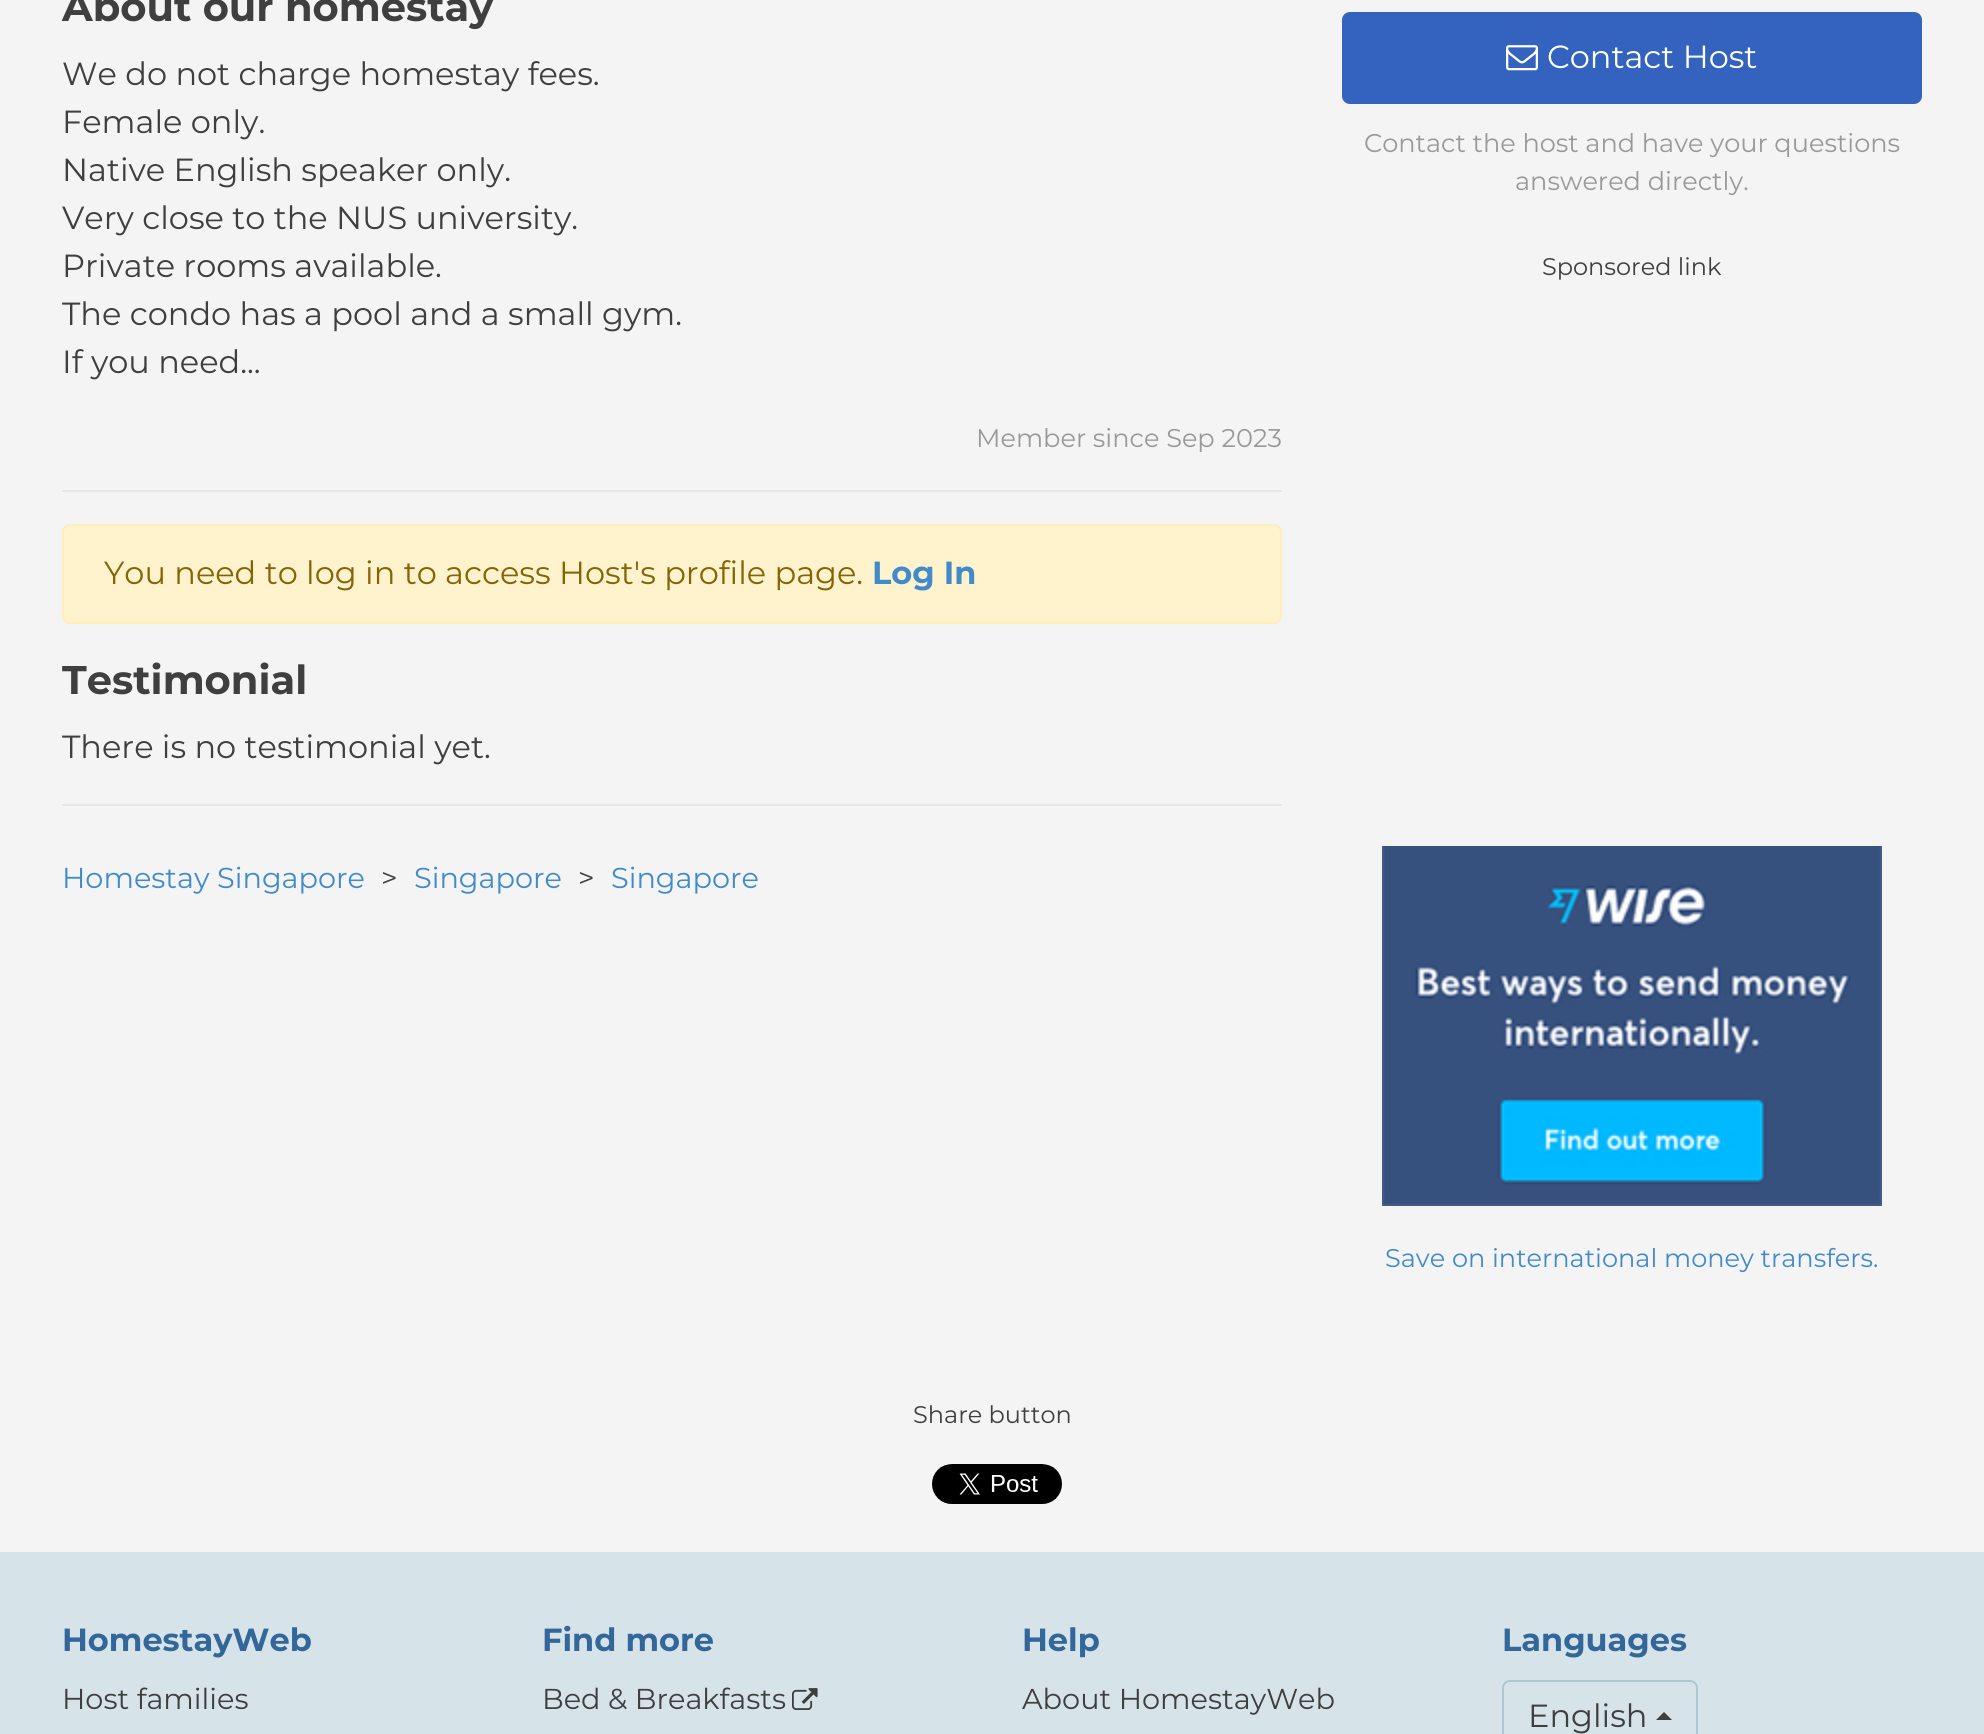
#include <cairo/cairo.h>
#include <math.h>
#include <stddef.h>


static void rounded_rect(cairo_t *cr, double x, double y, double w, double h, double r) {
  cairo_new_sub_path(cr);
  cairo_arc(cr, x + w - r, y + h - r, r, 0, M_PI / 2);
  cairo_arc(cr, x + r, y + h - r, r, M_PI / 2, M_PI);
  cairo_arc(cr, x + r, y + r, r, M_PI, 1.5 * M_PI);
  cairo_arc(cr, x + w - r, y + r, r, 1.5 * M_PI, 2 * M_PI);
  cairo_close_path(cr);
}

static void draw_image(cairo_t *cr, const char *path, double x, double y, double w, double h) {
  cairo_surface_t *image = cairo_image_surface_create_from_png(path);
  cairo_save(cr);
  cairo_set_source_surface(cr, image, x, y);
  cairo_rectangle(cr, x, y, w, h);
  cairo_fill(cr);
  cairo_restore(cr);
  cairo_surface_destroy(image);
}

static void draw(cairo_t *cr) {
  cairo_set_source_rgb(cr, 244 / 255.0, 244 / 255.0, 244 / 255.0);
  cairo_paint(cr);
  cairo_set_source_rgb(cr, 231 / 255.0, 231 / 255.0, 231 / 255.0);
  cairo_rectangle(cr, 62, 490, 1220, 2);
  cairo_fill(cr);
  cairo_set_source_rgb(cr, 1, 243 / 255.0, 205 / 255.0);
  rounded_rect(cr, 63, 525, 1218, 98, 7);
  cairo_fill_preserve(cr);
  cairo_set_source_rgb(cr, 1, 238 / 255.0, 186 / 255.0);
  cairo_stroke(cr);
  cairo_set_source_rgb(cr, 231 / 255.0, 231 / 255.0, 231 / 255.0);
  cairo_rectangle(cr, 62, 804, 1220, 2);
  cairo_fill(cr);
  cairo_set_source_rgb(cr, 51 / 255.0, 98 / 255.0, 191 / 255.0);
  rounded_rect(cr, 1343, 13, 578, 90, 7);
  cairo_fill_preserve(cr);
  cairo_stroke(cr);
  draw_image(cr, "images/1.png", 1506, 45, 32, 26);
  draw_image(cr, "images/2.png", 1382, 846, 500, 360);
  draw_image(cr, "images/3.png", 932, 1464, 130, 40);
  cairo_set_source_rgb(cr, 214 / 255.0, 228 / 255.0, 234 / 255.0);
  cairo_rectangle(cr, 0, 1552, 1984, 182);
  cairo_fill(cr);
  draw_image(cr, "images/4.png", 792, 1688, 26, 22);
  rounded_rect(cr, 1503, 1681, 194, 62, 7);
  cairo_set_source_rgb(cr, 177 / 255.0, 199 / 255.0, 208 / 255.0);
  cairo_stroke(cr);
  cairo_set_source_rgb(cr, 63 / 255.0, 63 / 255.0, 63 / 255.0);
  cairo_new_path(cr);
  cairo_move_to(cr, 1672, 1720);
  cairo_line_to(cr, 1656, 1720);
  cairo_line_to(cr, 1664, 1712);
  cairo_close_path(cr);
  cairo_fill(cr);
  cairo_select_font_face(cr, "Montserrat", CAIRO_FONT_SLANT_NORMAL, CAIRO_FONT_WEIGHT_BOLD);
  cairo_set_font_size(cr, 40);
  cairo_move_to(cr, 62, 21);
  cairo_show_text(cr, "About our homestay");
  cairo_select_font_face(cr, "Montserrat", CAIRO_FONT_SLANT_NORMAL, CAIRO_FONT_WEIGHT_NORMAL);
  cairo_set_font_size(cr, 32);
  cairo_move_to(cr, 62, 85);
  cairo_show_text(cr, "We do not charge homestay fees.");
  cairo_move_to(cr, 62, 133);
  cairo_show_text(cr, "Female only.");
  cairo_move_to(cr, 62, 181);
  cairo_show_text(cr, "Native English speaker only.");
  cairo_move_to(cr, 62, 229);
  cairo_show_text(cr, "Very close to the NUS university.");
  cairo_move_to(cr, 62, 277);
  cairo_show_text(cr, "Private rooms available.");
  cairo_move_to(cr, 62, 325);
  cairo_show_text(cr, "The condo has a pool and a small gym.");
  cairo_move_to(cr, 62, 373);
  cairo_show_text(cr, "If you need...");
  cairo_set_font_size(cr, 25.6);
  cairo_set_source_rgb(cr, 153 / 255.0, 153 / 255.0, 153 / 255.0);
  cairo_move_to(cr, 976, 447);
  cairo_show_text(cr, "Member since Sep 2023");
  cairo_set_font_size(cr, 32);
  cairo_set_source_rgb(cr, 133 / 255.0, 100 / 255.0, 4 / 255.0);
  cairo_move_to(cr, 104, 584);
  cairo_show_text(cr, "You need to log in to access Host's profile page.");
  cairo_select_font_face(cr, "Montserrat", CAIRO_FONT_SLANT_NORMAL, CAIRO_FONT_WEIGHT_BOLD);
  cairo_set_source_rgb(cr, 66 / 255.0, 139 / 255.0, 202 / 255.0);
  cairo_move_to(cr, 872, 584);
  cairo_show_text(cr, "Log In");
  cairo_set_font_size(cr, 40);
  cairo_set_source_rgb(cr, 63 / 255.0, 63 / 255.0, 63 / 255.0);
  cairo_move_to(cr, 62, 694);
  cairo_show_text(cr, "Testimonial");
  cairo_select_font_face(cr, "Montserrat", CAIRO_FONT_SLANT_NORMAL, CAIRO_FONT_WEIGHT_NORMAL);
  cairo_set_font_size(cr, 32);
  cairo_move_to(cr, 62, 758);
  cairo_show_text(cr, "There is no testimonial yet.");
  cairo_set_font_size(cr, 28.75);
  cairo_set_source_rgb(cr, 66 / 255.0, 139 / 255.0, 202 / 255.0);
  cairo_move_to(cr, 62, 888);
  cairo_show_text(cr, "Homestay Singapore");
  cairo_set_source_rgb(cr, 63 / 255.0, 63 / 255.0, 63 / 255.0);
  cairo_move_to(cr, 381, 888);
  cairo_show_text(cr, ">");
  cairo_set_source_rgb(cr, 66 / 255.0, 139 / 255.0, 202 / 255.0);
  cairo_move_to(cr, 414, 888);
  cairo_show_text(cr, "Singapore");
  cairo_set_source_rgb(cr, 63 / 255.0, 63 / 255.0, 63 / 255.0);
  cairo_move_to(cr, 578, 888);
  cairo_show_text(cr, ">");
  cairo_set_source_rgb(cr, 66 / 255.0, 139 / 255.0, 202 / 255.0);
  cairo_move_to(cr, 611, 888);
  cairo_show_text(cr, "Singapore");
  cairo_set_font_size(cr, 32);
  cairo_set_source_rgb(cr, 1, 1, 1);
  cairo_move_to(cr, 1547, 68);
  cairo_show_text(cr, "Contact Host");
  cairo_set_font_size(cr, 25.6);
  cairo_set_source_rgb(cr, 153 / 255.0, 153 / 255.0, 153 / 255.0);
  cairo_move_to(cr, 1364, 152);
  cairo_show_text(cr, "Contact the host and have your questions");
  cairo_move_to(cr, 1515, 190);
  cairo_show_text(cr, "answered directly.");
  cairo_set_font_size(cr, 24);
  cairo_set_source_rgb(cr, 63 / 255.0, 63 / 255.0, 63 / 255.0);
  cairo_move_to(cr, 1542, 275);
  cairo_show_text(cr, "Sponsored link");
  cairo_set_font_size(cr, 25.6);
  cairo_set_source_rgb(cr, 66 / 255.0, 139 / 255.0, 202 / 255.0);
  cairo_move_to(cr, 1385, 1267);
  cairo_show_text(cr, "Save on international money transfers.");
  cairo_set_font_size(cr, 24);
  cairo_set_source_rgb(cr, 63 / 255.0, 63 / 255.0, 63 / 255.0);
  cairo_move_to(cr, 913, 1423);
  cairo_show_text(cr, "Share button");
  cairo_select_font_face(cr, "Montserrat", CAIRO_FONT_SLANT_NORMAL, CAIRO_FONT_WEIGHT_BOLD);
  cairo_set_font_size(cr, 32);
  cairo_set_source_rgb(cr, 51 / 255.0, 102 / 255.0, 153 / 255.0);
  cairo_move_to(cr, 62, 1651);
  cairo_show_text(cr, "HomestayWeb");
  cairo_select_font_face(cr, "Montserrat", CAIRO_FONT_SLANT_NORMAL, CAIRO_FONT_WEIGHT_NORMAL);
  cairo_set_font_size(cr, 28.75);
  cairo_set_source_rgb(cr, 63 / 255.0, 63 / 255.0, 63 / 255.0);
  cairo_move_to(cr, 62, 1709);
  cairo_show_text(cr, "Host families");
  cairo_select_font_face(cr, "Montserrat", CAIRO_FONT_SLANT_NORMAL, CAIRO_FONT_WEIGHT_BOLD);
  cairo_set_font_size(cr, 32);
  cairo_set_source_rgb(cr, 51 / 255.0, 102 / 255.0, 153 / 255.0);
  cairo_move_to(cr, 542, 1651);
  cairo_show_text(cr, "Find more");
  cairo_select_font_face(cr, "Montserrat", CAIRO_FONT_SLANT_NORMAL, CAIRO_FONT_WEIGHT_NORMAL);
  cairo_set_font_size(cr, 28.75);
  cairo_set_source_rgb(cr, 63 / 255.0, 63 / 255.0, 63 / 255.0);
  cairo_move_to(cr, 542, 1709);
  cairo_show_text(cr, "Bed & Breakfasts");
  cairo_select_font_face(cr, "Montserrat", CAIRO_FONT_SLANT_NORMAL, CAIRO_FONT_WEIGHT_BOLD);
  cairo_set_font_size(cr, 32);
  cairo_set_source_rgb(cr, 51 / 255.0, 102 / 255.0, 153 / 255.0);
  cairo_move_to(cr, 1022, 1651);
  cairo_show_text(cr, "Help");
  cairo_select_font_face(cr, "Montserrat", CAIRO_FONT_SLANT_NORMAL, CAIRO_FONT_WEIGHT_NORMAL);
  cairo_set_font_size(cr, 28.75);
  cairo_set_source_rgb(cr, 63 / 255.0, 63 / 255.0, 63 / 255.0);
  cairo_move_to(cr, 1022, 1709);
  cairo_show_text(cr, "About HomestayWeb");
  cairo_select_font_face(cr, "Montserrat", CAIRO_FONT_SLANT_NORMAL, CAIRO_FONT_WEIGHT_BOLD);
  cairo_set_font_size(cr, 32);
  cairo_set_source_rgb(cr, 51 / 255.0, 102 / 255.0, 153 / 255.0);
  cairo_move_to(cr, 1502, 1651);
  cairo_show_text(cr, "Languages");
  cairo_select_font_face(cr, "Montserrat", CAIRO_FONT_SLANT_NORMAL, CAIRO_FONT_WEIGHT_NORMAL);
  cairo_set_source_rgb(cr, 63 / 255.0, 63 / 255.0, 63 / 255.0);
  cairo_move_to(cr, 1528, 1727);
  cairo_show_text(cr, "English");
}

int main(void) {
  cairo_surface_t *surface = cairo_image_surface_create(CAIRO_FORMAT_RGB24, 1984, 1734);
  cairo_t *cr = cairo_create(surface);
  cairo_font_options_t *options = cairo_font_options_create();
  cairo_font_options_set_hint_metrics(options, CAIRO_HINT_METRICS_OFF);
  cairo_font_options_set_hint_style(options, CAIRO_HINT_STYLE_NONE);
  cairo_set_font_options(cr, options);
  cairo_set_miter_limit(cr, 4);
  draw(cr);
  cairo_surface_write_to_png(surface, "out.png");
  cairo_font_options_destroy(options);
  cairo_destroy(cr);
  cairo_surface_destroy(surface);
  return 0;
}
